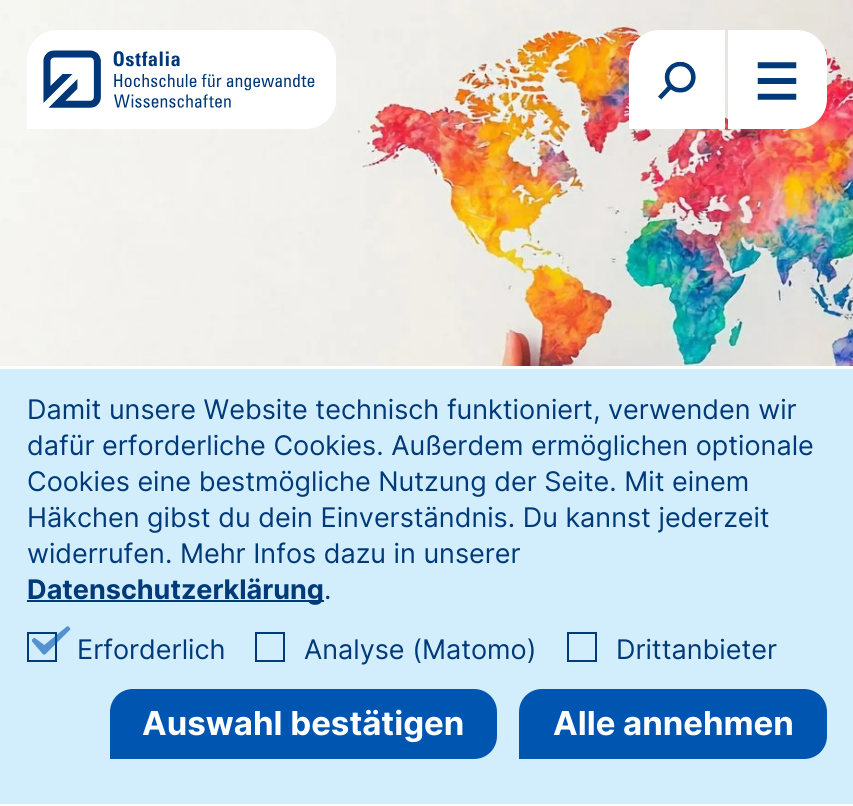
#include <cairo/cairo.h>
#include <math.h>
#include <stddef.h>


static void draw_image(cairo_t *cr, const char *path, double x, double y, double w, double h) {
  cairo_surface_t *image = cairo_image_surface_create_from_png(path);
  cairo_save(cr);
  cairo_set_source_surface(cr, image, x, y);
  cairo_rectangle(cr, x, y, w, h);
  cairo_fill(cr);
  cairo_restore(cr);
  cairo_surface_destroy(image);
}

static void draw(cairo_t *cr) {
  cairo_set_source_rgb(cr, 1, 1, 1);
  cairo_paint(cr);
  draw_image(cr, "images/1.png", 0, 0, 853, 366);
  cairo_set_source_rgb(cr, 1, 1, 1);
  cairo_new_path(cr);
  cairo_move_to(cr, 57, 30);
  cairo_line_to(cr, 306, 30);
  cairo_curve_to(cr, 322.5, 30, 336, 43.5, 336, 60);
  cairo_line_to(cr, 336, 99);
  cairo_curve_to(cr, 336, 115.5, 322.5, 129, 306, 129);
  cairo_line_to(cr, 27, 129);
  cairo_line_to(cr, 27, 60);
  cairo_curve_to(cr, 27, 43.5, 40.5, 30, 57, 30);
  cairo_close_path(cr);
  cairo_fill(cr);
  draw_image(cr, "images/2.png", 43, 50, 272, 58);
  cairo_new_path(cr);
  cairo_move_to(cr, 659, 30);
  cairo_line_to(cr, 725, 30);
  cairo_line_to(cr, 725, 129);
  cairo_line_to(cr, 629, 129);
  cairo_line_to(cr, 629, 60);
  cairo_curve_to(cr, 629, 43.5, 642.5, 30, 659, 30);
  cairo_close_path(cr);
  cairo_fill(cr);
  draw_image(cr, "images/3.png", 658, 61, 38, 39);
  cairo_new_path(cr);
  cairo_move_to(cr, 728, 30);
  cairo_line_to(cr, 797, 30);
  cairo_curve_to(cr, 813.5, 30, 827, 43.5, 827, 60);
  cairo_line_to(cr, 827, 99);
  cairo_curve_to(cr, 827, 115.5, 813.5, 129, 797, 129);
  cairo_line_to(cr, 728, 129);
  cairo_close_path(cr);
  cairo_fill(cr);
  draw_image(cr, "images/4.png", 757, 62, 40, 38);
  cairo_set_source_rgb(cr, 210 / 255.0, 237 / 255.0, 252 / 255.0);
  cairo_rectangle(cr, 0, 369, 853, 435);
  cairo_fill(cr);
  cairo_set_source_rgb(cr, 0, 58 / 255.0, 121 / 255.0);
  cairo_rectangle(cr, 27, 600, 297, 2);
  cairo_fill(cr);
  cairo_rectangle(cr, 28, 633, 28, 28);
  cairo_stroke(cr);
  draw_image(cr, "images/5.png", 32, 626, 39, 29);
  cairo_rectangle(cr, 256, 633, 28, 28);
  cairo_stroke(cr);
  cairo_rectangle(cr, 568, 633, 28, 28);
  cairo_stroke(cr);
  cairo_set_source_rgb(cr, 0, 85 / 255.0, 177 / 255.0);
  cairo_new_path(cr);
  cairo_move_to(cr, 133, 690.5);
  cairo_line_to(cr, 474, 690.5);
  cairo_curve_to(cr, 486, 690.5, 495.5, 700, 495.5, 712);
  cairo_line_to(cr, 495.5, 736);
  cairo_curve_to(cr, 495.5, 748, 486, 757.5, 474, 757.5);
  cairo_line_to(cr, 111.5, 757.5);
  cairo_line_to(cr, 111.5, 712);
  cairo_curve_to(cr, 111.5, 700, 121, 690.5, 133, 690.5);
  cairo_close_path(cr);
  cairo_fill_preserve(cr);
  cairo_set_line_width(cr, 3);
  cairo_stroke(cr);
  cairo_new_path(cr);
  cairo_move_to(cr, 542, 690.5);
  cairo_line_to(cr, 804, 690.5);
  cairo_curve_to(cr, 816, 690.5, 825.5, 700, 825.5, 712);
  cairo_line_to(cr, 825.5, 736);
  cairo_curve_to(cr, 825.5, 748, 816, 757.5, 804, 757.5);
  cairo_line_to(cr, 520.5, 757.5);
  cairo_line_to(cr, 520.5, 712);
  cairo_curve_to(cr, 520.5, 700, 530, 690.5, 542, 690.5);
  cairo_close_path(cr);
  cairo_fill_preserve(cr);
  cairo_stroke(cr);
  cairo_select_font_face(cr, "Inter", CAIRO_FONT_SLANT_NORMAL, CAIRO_FONT_WEIGHT_NORMAL);
  cairo_set_font_size(cr, 27);
  cairo_set_source_rgb(cr, 0, 58 / 255.0, 121 / 255.0);
  cairo_move_to(cr, 27, 419);
  cairo_show_text(cr, "Damit unsere Website technisch funktioniert, verwenden wir");
  cairo_move_to(cr, 27, 455);
  cairo_show_text(cr, "dafür erforderliche Cookies. Außerdem ermöglichen optionale");
  cairo_move_to(cr, 27, 491);
  cairo_show_text(cr, "Cookies eine bestmögliche Nutzung der Seite. Mit einem");
  cairo_move_to(cr, 27, 527);
  cairo_show_text(cr, "Häkchen gibst du dein Einverständnis. Du kannst jederzeit");
  cairo_move_to(cr, 27, 563);
  cairo_show_text(cr, "widerrufen. Mehr Infos dazu in unserer");
  cairo_select_font_face(cr, "Inter", CAIRO_FONT_SLANT_NORMAL, CAIRO_FONT_WEIGHT_BOLD);
  cairo_move_to(cr, 27, 599);
  cairo_show_text(cr, "Datenschutzerklärung");
  cairo_select_font_face(cr, "Inter", CAIRO_FONT_SLANT_NORMAL, CAIRO_FONT_WEIGHT_NORMAL);
  cairo_move_to(cr, 324, 599);
  cairo_show_text(cr, ".");
  cairo_move_to(cr, 77, 659);
  cairo_show_text(cr, "Erforderlich");
  cairo_move_to(cr, 304, 659);
  cairo_show_text(cr, "Analyse (Matomo)");
  cairo_move_to(cr, 616, 659);
  cairo_show_text(cr, "Drittanbieter");
  cairo_select_font_face(cr, "Inter", CAIRO_FONT_SLANT_NORMAL, CAIRO_FONT_WEIGHT_BOLD);
  cairo_set_font_size(cr, 33);
  cairo_set_source_rgb(cr, 1, 1, 1);
  cairo_move_to(cr, 142, 735);
  cairo_show_text(cr, "Auswahl bestätigen");
  cairo_move_to(cr, 553, 735);
  cairo_show_text(cr, "Alle annehmen");
}

int main(void) {
  cairo_surface_t *surface = cairo_image_surface_create(CAIRO_FORMAT_RGB24, 853, 806);
  cairo_t *cr = cairo_create(surface);
  cairo_font_options_t *options = cairo_font_options_create();
  cairo_font_options_set_hint_metrics(options, CAIRO_HINT_METRICS_OFF);
  cairo_font_options_set_hint_style(options, CAIRO_HINT_STYLE_NONE);
  cairo_set_font_options(cr, options);
  cairo_set_miter_limit(cr, 4);
  draw(cr);
  cairo_surface_write_to_png(surface, "out.png");
  cairo_font_options_destroy(options);
  cairo_destroy(cr);
  cairo_surface_destroy(surface);
  return 0;
}
